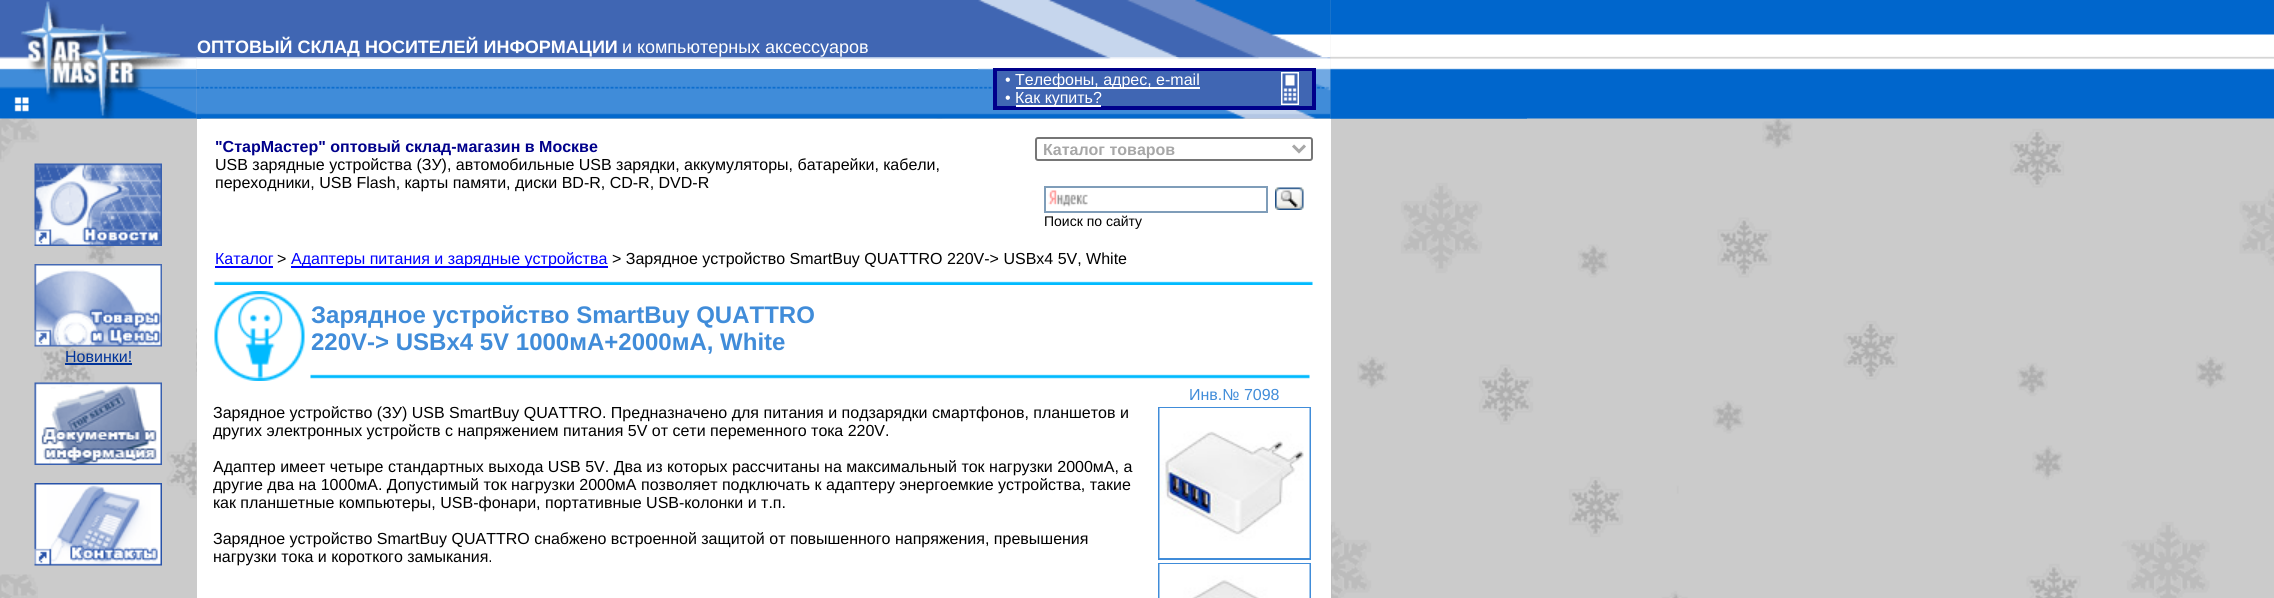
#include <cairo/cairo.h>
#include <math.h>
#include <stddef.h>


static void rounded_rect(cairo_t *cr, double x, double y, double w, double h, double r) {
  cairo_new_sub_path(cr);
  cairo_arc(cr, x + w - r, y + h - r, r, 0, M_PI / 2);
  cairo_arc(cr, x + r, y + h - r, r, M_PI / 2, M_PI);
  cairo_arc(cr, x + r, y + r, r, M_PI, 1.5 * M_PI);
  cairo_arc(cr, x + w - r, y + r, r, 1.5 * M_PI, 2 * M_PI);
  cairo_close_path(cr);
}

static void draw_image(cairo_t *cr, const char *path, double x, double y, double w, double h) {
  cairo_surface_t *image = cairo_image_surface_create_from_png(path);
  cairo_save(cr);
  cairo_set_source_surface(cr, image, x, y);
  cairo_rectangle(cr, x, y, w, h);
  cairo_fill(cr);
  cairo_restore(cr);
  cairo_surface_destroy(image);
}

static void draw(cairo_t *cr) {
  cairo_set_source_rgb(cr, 1, 1, 1);
  cairo_paint(cr);
  draw_image(cr, "images/1.png", 0, 0, 2274, 598);
  cairo_set_source_rgb(cr, 64 / 255.0, 102 / 255.0, 179 / 255.0);
  cairo_rectangle(cr, 196, 0, 782, 57);
  cairo_fill(cr);
  draw_image(cr, "images/7.png", 196, 69, 782, 50);
  draw_image(cr, "images/9.png", 196, 57, 782, 12);
  draw_image(cr, "images/13.png", 0, 118, 197, 480);
  draw_image(cr, "images/2.png", 0, 0, 197, 119);
  draw_image(cr, "images/4.png", 1330, 0, 197, 119);
  draw_image(cr, "images/3.png", 978, 0, 353, 57);
  draw_image(cr, "images/11.png", 978, 57, 353, 62);
  draw_image(cr, "images/5.png", 1330, 0, 197, 119);
  draw_image(cr, "images/6.png", 1527, 0, 747, 119);
  draw_image(cr, "images/8.png", 196, 69, 5, 50);
  draw_image(cr, "images/10.png", 196, 57, 1, 12);
  cairo_rectangle(cr, 994, 69, 321, 40);
  cairo_set_source_rgb(cr, 0, 0, 139 / 255.0);
  cairo_stroke(cr);
  cairo_set_source_rgb(cr, 64 / 255.0, 102 / 255.0, 179 / 255.0);
  cairo_rectangle(cr, 996, 70, 317, 37);
  cairo_fill_preserve(cr);
  cairo_set_source_rgb(cr, 0, 0, 139 / 255.0);
  cairo_stroke(cr);
  cairo_set_source_rgb(cr, 1, 1, 1);
  cairo_rectangle(cr, 1016, 87, 184, 2);
  cairo_fill(cr);
  cairo_rectangle(cr, 1016, 105, 85, 2);
  cairo_fill(cr);
  draw_image(cr, "images/12.png", 1281, 72, 18, 33);
  draw_image(cr, "images/14.png", 34, 163, 128, 83);
  draw_image(cr, "images/15.png", 34, 264, 128, 83);
  cairo_set_source_rgb(cr, 0, 51 / 255.0, 153 / 255.0);
  cairo_rectangle(cr, 65, 363, 67, 2);
  cairo_fill(cr);
  draw_image(cr, "images/16.png", 34, 382, 128, 83);
  draw_image(cr, "images/17.png", 34, 483, 128, 83);
  draw_image(cr, "images/18.png", 0, 574, 38, 24);
  cairo_set_source_rgb(cr, 1, 1, 1);
  cairo_rectangle(cr, 197, 119, 1134, 479);
  cairo_fill(cr);
  rounded_rect(cr, 1036, 138, 276, 22, 2);
  cairo_set_source_rgb(cr, 118 / 255.0, 118 / 255.0, 118 / 255.0);
  cairo_stroke(cr);
  cairo_new_path(cr);
  cairo_move_to(cr, 1293, 145.5);
  cairo_line_to(cr, 1299, 151.5);
  cairo_line_to(cr, 1305, 145.5);
  cairo_set_source_rgb(cr, 167 / 255.0, 167 / 255.0, 167 / 255.0);
  cairo_set_line_width(cr, 3);
  cairo_stroke(cr);
  draw_image(cr, "images/19.png", 1048, 190, 40, 17);
  cairo_rectangle(cr, 1045, 187, 222, 25);
  cairo_set_source_rgb(cr, 127 / 255.0, 157 / 255.0, 185 / 255.0);
  cairo_set_line_width(cr, 2);
  cairo_stroke(cr);
  draw_image(cr, "images/20.png", 1275, 187, 29, 23);
  cairo_set_source_rgb(cr, 0, 0, 1);
  cairo_rectangle(cr, 215, 266, 58, 2);
  cairo_fill(cr);
  cairo_rectangle(cr, 291, 266, 317, 2);
  cairo_fill(cr);
  draw_image(cr, "images/21.png", 214, 281, 1099, 4);
  draw_image(cr, "images/22.png", 214, 291, 91, 90);
  draw_image(cr, "images/23.png", 310, 374, 1000, 5);
  cairo_rectangle(cr, 1159, 408, 151, 151);
  cairo_set_source_rgb(cr, 64 / 255.0, 140 / 255.0, 217 / 255.0);
  cairo_stroke(cr);
  draw_image(cr, "images/24.png", 1159, 408, 151, 150);
  cairo_rectangle(cr, 1159, 564, 151, 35);
  cairo_stroke(cr);
  draw_image(cr, "images/25.png", 1159, 564, 151, 34);
  cairo_select_font_face(cr, "Liberation Sans", CAIRO_FONT_SLANT_NORMAL, CAIRO_FONT_WEIGHT_BOLD);
  cairo_set_font_size(cr, 18);
  cairo_set_source_rgb(cr, 1, 1, 1);
  cairo_move_to(cr, 197, 53);
  cairo_show_text(cr, "ОПТОВЫЙ СКЛАД НОСИТЕЛЕЙ ИНФОРМАЦИИ");
  cairo_select_font_face(cr, "Liberation Sans", CAIRO_FONT_SLANT_NORMAL, CAIRO_FONT_WEIGHT_NORMAL);
  cairo_move_to(cr, 622, 53);
  cairo_show_text(cr, "и компьютерных аксессуаров");
  cairo_set_font_size(cr, 16);
  cairo_move_to(cr, 1005, 85);
  cairo_show_text(cr, "•");
  cairo_move_to(cr, 1015, 85);
  cairo_show_text(cr, "Телефоны, адрес, e-mail");
  cairo_move_to(cr, 1005, 103);
  cairo_show_text(cr, "•");
  cairo_move_to(cr, 1015, 103);
  cairo_show_text(cr, "Как купить?");
  cairo_set_source_rgb(cr, 0, 51 / 255.0, 153 / 255.0);
  cairo_move_to(cr, 65, 362);
  cairo_show_text(cr, "Новинки!");
  cairo_select_font_face(cr, "Liberation Sans", CAIRO_FONT_SLANT_NORMAL, CAIRO_FONT_WEIGHT_BOLD);
  cairo_set_source_rgb(cr, 0, 0, 139 / 255.0);
  cairo_move_to(cr, 215, 152);
  cairo_show_text(cr, "\"СтарМастер\" оптовый склад-магазин в Москве");
  cairo_select_font_face(cr, "Liberation Sans", CAIRO_FONT_SLANT_NORMAL, CAIRO_FONT_WEIGHT_NORMAL);
  cairo_set_source_rgb(cr, 0, 0, 0);
  cairo_move_to(cr, 215, 170);
  cairo_show_text(cr, "USB зарядные устройства (ЗУ), автомобильные USB зарядки, аккумуляторы, батарейки, кабели,");
  cairo_move_to(cr, 215, 188);
  cairo_show_text(cr, "переходники, USB Flash, карты памяти, диски BD-R, CD-R, DVD-R");
  cairo_select_font_face(cr, "Liberation Sans", CAIRO_FONT_SLANT_NORMAL, CAIRO_FONT_WEIGHT_BOLD);
  cairo_set_source_rgb(cr, 167 / 255.0, 167 / 255.0, 167 / 255.0);
  cairo_move_to(cr, 1043, 155);
  cairo_show_text(cr, "Каталог товаров");
  cairo_select_font_face(cr, "Liberation Sans", CAIRO_FONT_SLANT_NORMAL, CAIRO_FONT_WEIGHT_NORMAL);
  cairo_set_font_size(cr, 14);
  cairo_set_source_rgb(cr, 0, 0, 0);
  cairo_move_to(cr, 1044, 226);
  cairo_show_text(cr, "Поиск по сайту");
  cairo_set_font_size(cr, 16);
  cairo_set_source_rgb(cr, 0, 0, 1);
  cairo_move_to(cr, 215, 264);
  cairo_show_text(cr, "Каталог");
  cairo_set_source_rgb(cr, 0, 0, 0);
  cairo_move_to(cr, 277, 264);
  cairo_show_text(cr, ">");
  cairo_set_source_rgb(cr, 0, 0, 1);
  cairo_move_to(cr, 291, 264);
  cairo_show_text(cr, "Адаптеры питания и зарядные устройства");
  cairo_set_source_rgb(cr, 0, 0, 0);
  cairo_move_to(cr, 612, 264);
  cairo_show_text(cr, "> Зарядное устройство SmartBuy QUATTRO 220V-> USBx4 5V, White");
  cairo_select_font_face(cr, "Liberation Sans", CAIRO_FONT_SLANT_NORMAL, CAIRO_FONT_WEIGHT_BOLD);
  cairo_set_font_size(cr, 24);
  cairo_set_source_rgb(cr, 64 / 255.0, 140 / 255.0, 217 / 255.0);
  cairo_move_to(cr, 311, 323);
  cairo_show_text(cr, "Зарядное устройство SmartBuy QUATTRO");
  cairo_move_to(cr, 311, 350);
  cairo_show_text(cr, "220V-> USBx4 5V 1000мА+2000мА, White");
  cairo_select_font_face(cr, "Liberation Sans", CAIRO_FONT_SLANT_NORMAL, CAIRO_FONT_WEIGHT_NORMAL);
  cairo_set_font_size(cr, 16);
  cairo_move_to(cr, 1189, 400);
  cairo_show_text(cr, "Инв.№ 7098");
  cairo_set_source_rgb(cr, 0, 0, 0);
  cairo_move_to(cr, 213, 418);
  cairo_show_text(cr, "Зарядное устройство (ЗУ) USB SmartBuy QUATTRO. Предназначено для питания и подзарядки смартфонов, планшетов и");
  cairo_move_to(cr, 213, 436);
  cairo_show_text(cr, "других электронных устройств с напряжением питания 5V от сети переменного тока 220V.");
  cairo_move_to(cr, 213, 472);
  cairo_show_text(cr, "Адаптер имеет четыре стандартных выхода USB 5V. Два из которых рассчитаны на максимальный ток нагрузки 2000мА, а");
  cairo_move_to(cr, 213, 490);
  cairo_show_text(cr, "другие два на 1000мА. Допустимый ток нагрузки 2000мА позволяет подключать к адаптеру энергоемкие устройства, такие");
  cairo_move_to(cr, 213, 508);
  cairo_show_text(cr, "как планшетные компьютеры, USB-фонари, портативные USB-колонки и т.п.");
  cairo_move_to(cr, 213, 544);
  cairo_show_text(cr, "Зарядное устройство SmartBuy QUATTRO снабжено встроенной защитой от повышенного напряжения, превышения");
  cairo_move_to(cr, 213, 562);
  cairo_show_text(cr, "нагрузки тока и короткого замыкания.");
}

int main(void) {
  cairo_surface_t *surface = cairo_image_surface_create(CAIRO_FORMAT_RGB24, 2274, 598);
  cairo_t *cr = cairo_create(surface);
  cairo_font_options_t *options = cairo_font_options_create();
  cairo_font_options_set_hint_metrics(options, CAIRO_HINT_METRICS_OFF);
  cairo_font_options_set_hint_style(options, CAIRO_HINT_STYLE_NONE);
  cairo_set_font_options(cr, options);
  cairo_set_miter_limit(cr, 4);
  draw(cr);
  cairo_surface_write_to_png(surface, "out.png");
  cairo_font_options_destroy(options);
  cairo_destroy(cr);
  cairo_surface_destroy(surface);
  return 0;
}
